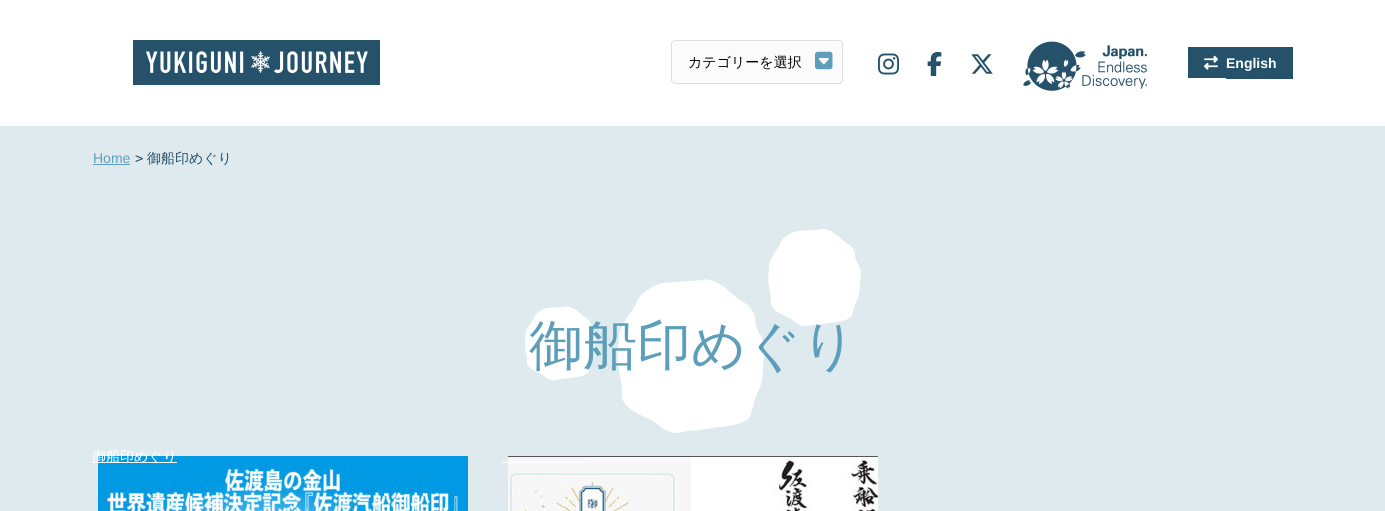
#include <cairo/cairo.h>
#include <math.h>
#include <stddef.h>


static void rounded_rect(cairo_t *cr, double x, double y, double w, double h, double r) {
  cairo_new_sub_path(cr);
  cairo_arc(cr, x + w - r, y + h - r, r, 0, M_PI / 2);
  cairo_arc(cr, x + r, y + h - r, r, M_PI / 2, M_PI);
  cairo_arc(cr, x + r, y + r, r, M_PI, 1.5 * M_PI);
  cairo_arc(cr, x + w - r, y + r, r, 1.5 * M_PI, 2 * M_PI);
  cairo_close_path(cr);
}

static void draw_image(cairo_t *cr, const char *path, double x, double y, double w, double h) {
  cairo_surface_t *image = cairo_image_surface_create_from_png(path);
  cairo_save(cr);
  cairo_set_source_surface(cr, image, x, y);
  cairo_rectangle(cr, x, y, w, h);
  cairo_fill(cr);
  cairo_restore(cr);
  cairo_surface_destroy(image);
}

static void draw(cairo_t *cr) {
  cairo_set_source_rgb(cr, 1, 1, 1);
  cairo_paint(cr);
  draw_image(cr, "images/1.png", 133, 40, 247, 45);
  cairo_set_source_rgb(cr, 251 / 255.0, 251 / 255.0, 251 / 255.0);
  rounded_rect(cr, 671.5, 40.5, 171, 43, 3.5);
  cairo_fill_preserve(cr);
  cairo_set_source_rgb(cr, 220 / 255.0, 224 / 255.0, 224 / 255.0);
  cairo_set_line_width(cr, 1);
  cairo_stroke(cr);
  draw_image(cr, "images/2.png", 815, 51, 18, 19);
  draw_image(cr, "images/3.png", 878, 53, 21, 22);
  draw_image(cr, "images/4.png", 927, 52, 15, 24);
  draw_image(cr, "images/5.png", 971, 54, 22, 20);
  draw_image(cr, "images/6.png", 1023, 41, 124, 50);
  cairo_set_source_rgb(cr, 37 / 255.0, 82 / 255.0, 106 / 255.0);
  cairo_rectangle(cr, 1188, 47, 38, 31);
  cairo_fill(cr);
  draw_image(cr, "images/7.png", 1204, 55, 14, 15);
  cairo_rectangle(cr, 1226, 47, 67, 32);
  cairo_fill(cr);
  cairo_set_source_rgb(cr, 223 / 255.0, 234 / 255.0, 238 / 255.0);
  cairo_rectangle(cr, 0, 126, 1385, 385);
  cairo_fill(cr);
  cairo_set_source_rgb(cr, 93 / 255.0, 159 / 255.0, 187 / 255.0);
  cairo_rectangle(cr, 93, 164, 37, 1);
  cairo_fill(cr);
  draw_image(cr, "images/8.png", 525, 229, 336, 204);
  draw_image(cr, "images/9.png", 98, 456, 370, 55);
  cairo_set_source_rgb(cr, 1, 1, 1);
  cairo_rectangle(cr, 92, 462, 85, 1);
  cairo_fill(cr);
  draw_image(cr, "images/10.png", 508, 456, 370, 55);
  cairo_rectangle(cr, 502, 462, 85, 1);
  cairo_fill(cr);
  cairo_select_font_face(cr, "WenQuanYi Zen Hei Medium", CAIRO_FONT_SLANT_NORMAL, CAIRO_FONT_WEIGHT_NORMAL);
  cairo_set_font_size(cr, 14);
  cairo_set_source_rgb(cr, 0, 0, 0);
  cairo_move_to(cr, 688, 67);
  cairo_show_text(cr, "カテゴリーを選択");
  cairo_select_font_face(cr, "Liberation Sans", CAIRO_FONT_SLANT_NORMAL, CAIRO_FONT_WEIGHT_BOLD);
  cairo_set_source_rgb(cr, 1, 1, 1);
  cairo_move_to(cr, 1226, 68);
  cairo_show_text(cr, "English");
  cairo_select_font_face(cr, "Liberation Sans", CAIRO_FONT_SLANT_NORMAL, CAIRO_FONT_WEIGHT_NORMAL);
  cairo_set_source_rgb(cr, 93 / 255.0, 159 / 255.0, 187 / 255.0);
  cairo_move_to(cr, 93, 163);
  cairo_show_text(cr, "Home");
  cairo_select_font_face(cr, "DejaVu Sans Mono", CAIRO_FONT_SLANT_NORMAL, CAIRO_FONT_WEIGHT_NORMAL);
  cairo_set_source_rgb(cr, 37 / 255.0, 82 / 255.0, 106 / 255.0);
  cairo_move_to(cr, 135, 163);
  cairo_show_text(cr, ">");
  cairo_select_font_face(cr, "WenQuanYi Zen Hei Medium", CAIRO_FONT_SLANT_NORMAL, CAIRO_FONT_WEIGHT_NORMAL);
  cairo_move_to(cr, 147, 163);
  cairo_show_text(cr, "御船印めぐり");
  cairo_set_font_size(cr, 54);
  cairo_set_source_rgb(cr, 93 / 255.0, 159 / 255.0, 187 / 255.0);
  cairo_move_to(cr, 529, 364);
  cairo_show_text(cr, "御船印めぐり");
  cairo_set_font_size(cr, 14);
  cairo_set_source_rgb(cr, 1, 1, 1);
  cairo_move_to(cr, 92, 461);
  cairo_show_text(cr, "御船印めぐり");
}

int main(void) {
  cairo_surface_t *surface = cairo_image_surface_create(CAIRO_FORMAT_RGB24, 1385, 511);
  cairo_t *cr = cairo_create(surface);
  cairo_font_options_t *options = cairo_font_options_create();
  cairo_font_options_set_hint_metrics(options, CAIRO_HINT_METRICS_OFF);
  cairo_font_options_set_hint_style(options, CAIRO_HINT_STYLE_NONE);
  cairo_set_font_options(cr, options);
  cairo_set_miter_limit(cr, 4);
  draw(cr);
  cairo_surface_write_to_png(surface, "out.png");
  cairo_font_options_destroy(options);
  cairo_destroy(cr);
  cairo_surface_destroy(surface);
  return 0;
}
